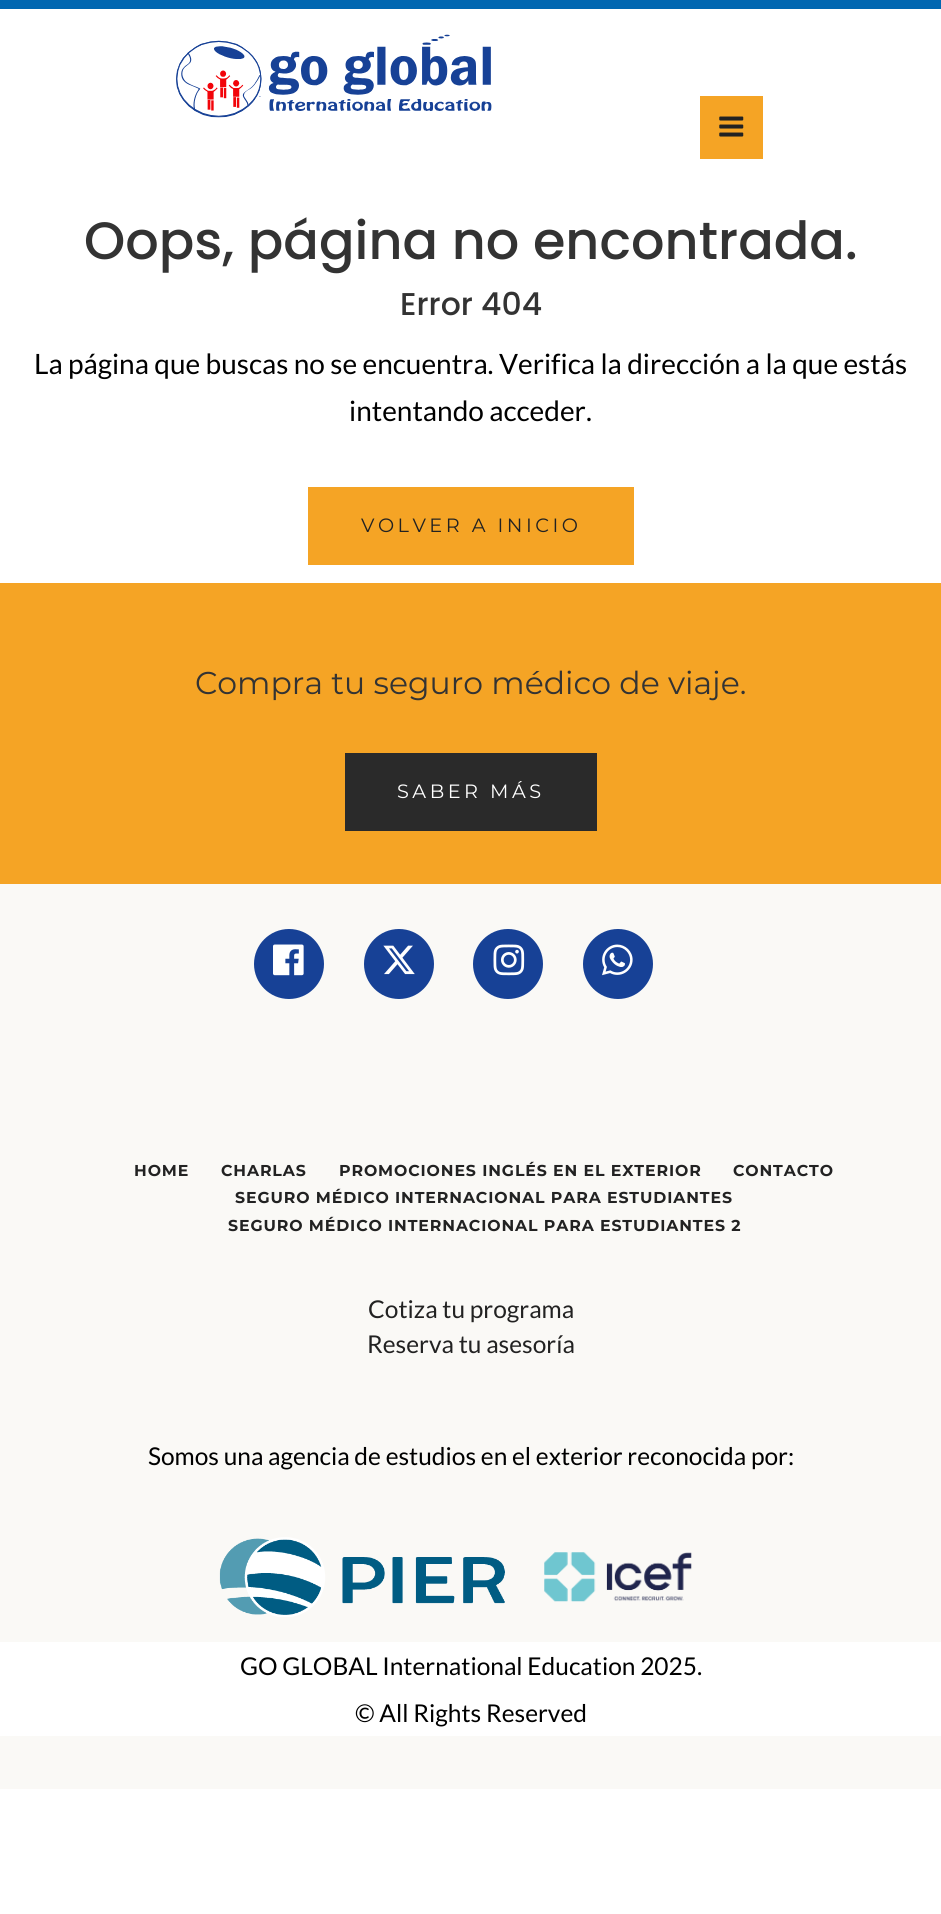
#include <cairo/cairo.h>
#include <math.h>
#include <stddef.h>


static void draw_spaced(cairo_t *cr, double x, double y, const char *s, double letter, double word) {
  cairo_move_to(cr, x, y);
  while (*s) {
    char ch[5] = {0};
    int n = 0;
    do ch[n++] = *s++; while ((*s & 0xC0) == 0x80);
    cairo_show_text(cr, ch);
    cairo_rel_move_to(cr, letter + word * (*ch == ' '), 0);
  }
}

static void draw_image(cairo_t *cr, const char *path, double x, double y, double w, double h) {
  cairo_surface_t *image = cairo_image_surface_create_from_png(path);
  cairo_save(cr);
  cairo_set_source_surface(cr, image, x, y);
  cairo_rectangle(cr, x, y, w, h);
  cairo_fill(cr);
  cairo_restore(cr);
  cairo_surface_destroy(image);
}

static void draw(cairo_t *cr) {
  cairo_set_source_rgb(cr, 1, 1, 1);
  cairo_paint(cr);
  cairo_set_source_rgb(cr, 1 / 255.0, 103 / 255.0, 177 / 255.0);
  cairo_rectangle(cr, 0, 0, 941, 9);
  cairo_fill(cr);
  draw_image(cr, "images/1.png", 176, 34, 316, 84);
  cairo_set_source_rgb(cr, 245 / 255.0, 164 / 255.0, 37 / 255.0);
  cairo_rectangle(cr, 700, 96, 63, 63);
  cairo_fill(cr);
  draw_image(cr, "images/2.png", 719, 116, 25, 21);
  cairo_rectangle(cr, 308, 487, 326, 78);
  cairo_fill(cr);
  cairo_rectangle(cr, 0, 583, 941, 301);
  cairo_fill(cr);
  cairo_set_source_rgb(cr, 42 / 255.0, 42 / 255.0, 42 / 255.0);
  cairo_rectangle(cr, 345, 753, 252, 78);
  cairo_fill(cr);
  cairo_set_source_rgb(cr, 250 / 255.0, 249 / 255.0, 246 / 255.0);
  cairo_rectangle(cr, 0, 884, 941, 905);
  cairo_fill(cr);
  cairo_set_source_rgb(cr, 23 / 255.0, 65 / 255.0, 150 / 255.0);
  cairo_arc(cr, 289, 964, 35, 0, 2 * M_PI);
  cairo_fill(cr);
  draw_image(cr, "images/3.png", 273, 944, 31, 32);
  cairo_arc(cr, 399, 964, 35, 0, 2 * M_PI);
  cairo_fill(cr);
  draw_image(cr, "images/4.png", 383, 945, 32, 30);
  cairo_arc(cr, 508, 964, 35, 0, 2 * M_PI);
  cairo_fill(cr);
  draw_image(cr, "images/5.png", 493, 944, 32, 32);
  cairo_arc(cr, 618, 964, 35, 0, 2 * M_PI);
  cairo_fill(cr);
  draw_image(cr, "images/6.png", 602, 944, 31, 32);
  draw_image(cr, "images/7.png", 219, 1537, 286, 80);
  draw_image(cr, "images/8.png", 544, 1552, 148, 50);
  cairo_set_source_rgb(cr, 1, 1, 1);
  cairo_rectangle(cr, 0, 1642, 941, 94);
  cairo_fill(cr);
  cairo_select_font_face(cr, "Poppins Medium", CAIRO_FONT_SLANT_NORMAL, CAIRO_FONT_WEIGHT_NORMAL);
  cairo_set_font_size(cr, 52.5);
  cairo_set_source_rgb(cr, 51 / 255.0, 51 / 255.0, 51 / 255.0);
  cairo_move_to(cr, 84, 259);
  cairo_show_text(cr, "Oops, página no encontrada.");
  cairo_set_font_size(cr, 31.5);
  cairo_move_to(cr, 400, 315);
  cairo_show_text(cr, "Error 404");
  cairo_select_font_face(cr, "Lato", CAIRO_FONT_SLANT_NORMAL, CAIRO_FONT_WEIGHT_NORMAL);
  cairo_set_font_size(cr, 28);
  cairo_set_source_rgb(cr, 0, 0, 0);
  cairo_move_to(cr, 34, 374);
  cairo_show_text(cr, "La página que buscas no se encuentra. Verifica la dirección a la que estás");
  cairo_move_to(cr, 349, 421);
  cairo_show_text(cr, "intentando acceder.");
  cairo_select_font_face(cr, "Montserrat", CAIRO_FONT_SLANT_NORMAL, CAIRO_FONT_WEIGHT_NORMAL);
  cairo_set_font_size(cr, 19.25);
  cairo_set_source_rgb(cr, 34 / 255.0, 34 / 255.0, 34 / 255.0);
  draw_spaced(cr, 361, 532, "VOLVER A INICIO", 3.5, 0);
  cairo_set_font_size(cr, 31.5);
  cairo_set_source_rgb(cr, 51 / 255.0, 51 / 255.0, 51 / 255.0);
  cairo_move_to(cr, 195, 694);
  cairo_show_text(cr, "Compra tu seguro médico de viaje.");
  cairo_set_font_size(cr, 19.25);
  cairo_set_source_rgb(cr, 1, 1, 1);
  draw_spaced(cr, 397, 798, "SABER MÁS", 3.5, 0);
  cairo_select_font_face(cr, "Montserrat", CAIRO_FONT_SLANT_NORMAL, CAIRO_FONT_WEIGHT_BOLD);
  cairo_set_font_size(cr, 15.75);
  cairo_set_source_rgb(cr, 34 / 255.0, 34 / 255.0, 34 / 255.0);
  draw_spaced(cr, 134, 1176, "HOME", 0.9, 0);
  draw_spaced(cr, 221, 1176, "CHARLAS", 0.9, 0);
  draw_spaced(cr, 339, 1176, "PROMOCIONES INGLÉS EN EL EXTERIOR", 0.9, 0);
  draw_spaced(cr, 733, 1176, "CONTACTO", 0.9, 0);
  draw_spaced(cr, 235, 1203, "SEGURO MÉDICO INTERNACIONAL PARA ESTUDIANTES", 0.9, 0);
  draw_spaced(cr, 228, 1231, "SEGURO MÉDICO INTERNACIONAL PARA ESTUDIANTES 2", 0.9, 0);
  cairo_select_font_face(cr, "Lato", CAIRO_FONT_SLANT_NORMAL, CAIRO_FONT_WEIGHT_NORMAL);
  cairo_set_font_size(cr, 24.5);
  cairo_move_to(cr, 368, 1318);
  cairo_show_text(cr, "Cotiza tu programa");
  cairo_move_to(cr, 367, 1353);
  cairo_show_text(cr, "Reserva tu asesoría");
  cairo_set_source_rgb(cr, 0, 0, 0);
  cairo_move_to(cr, 148, 1465);
  cairo_show_text(cr, "Somos una agencia de estudios en el exterior reconocida por:");
  cairo_move_to(cr, 240, 1675);
  cairo_show_text(cr, "GO GLOBAL International Education 2025.");
  cairo_move_to(cr, 355, 1722);
  cairo_show_text(cr, "© All Rights Reserved");
}

int main(void) {
  cairo_surface_t *surface = cairo_image_surface_create(CAIRO_FORMAT_RGB24, 941, 1914);
  cairo_t *cr = cairo_create(surface);
  cairo_font_options_t *options = cairo_font_options_create();
  cairo_font_options_set_hint_metrics(options, CAIRO_HINT_METRICS_OFF);
  cairo_font_options_set_hint_style(options, CAIRO_HINT_STYLE_NONE);
  cairo_set_font_options(cr, options);
  cairo_set_miter_limit(cr, 4);
  draw(cr);
  cairo_surface_write_to_png(surface, "out.png");
  cairo_font_options_destroy(options);
  cairo_destroy(cr);
  cairo_surface_destroy(surface);
  return 0;
}
